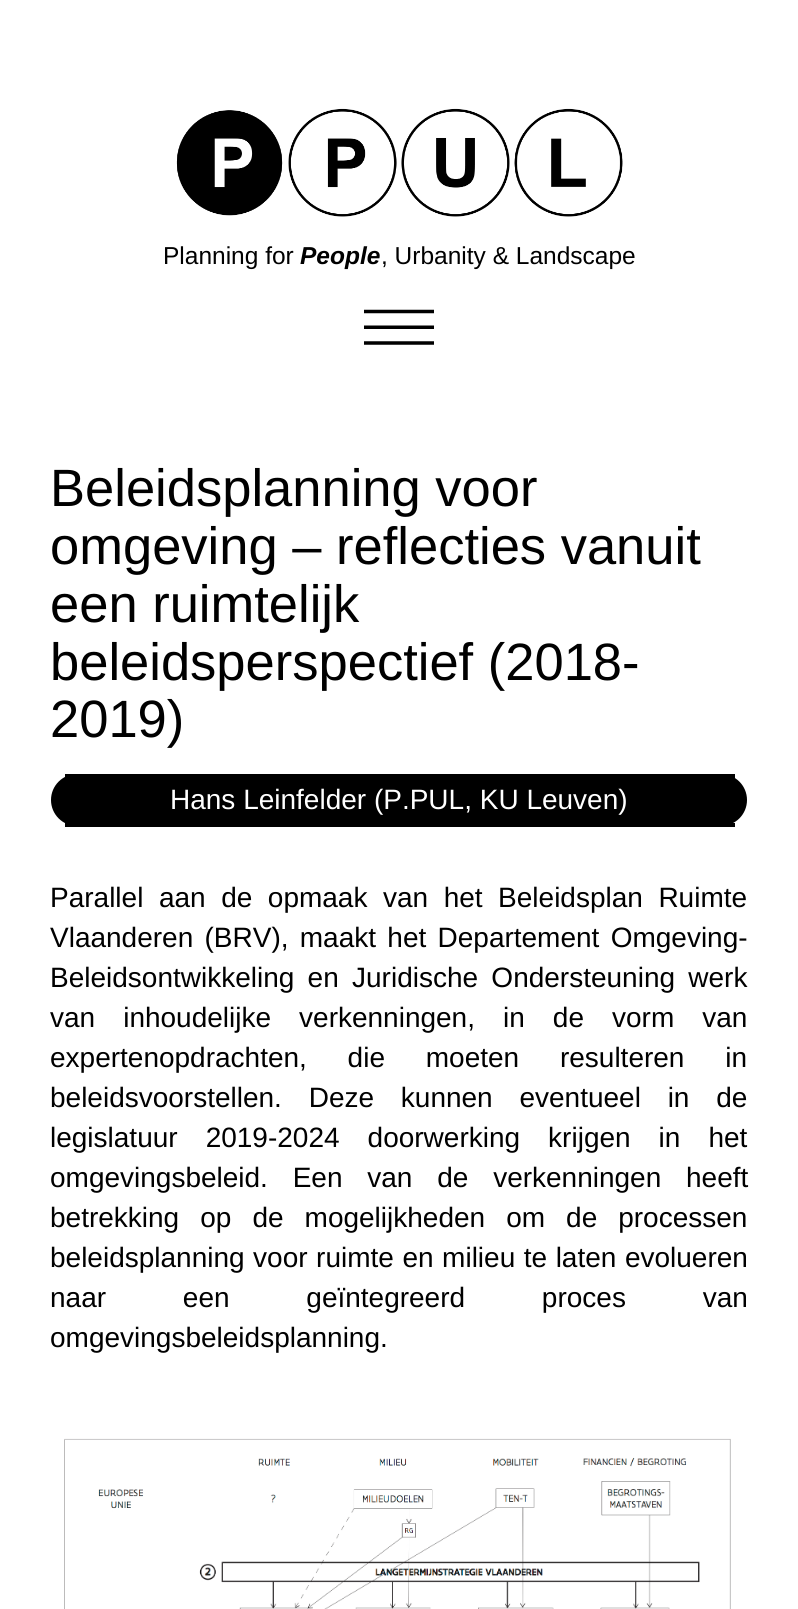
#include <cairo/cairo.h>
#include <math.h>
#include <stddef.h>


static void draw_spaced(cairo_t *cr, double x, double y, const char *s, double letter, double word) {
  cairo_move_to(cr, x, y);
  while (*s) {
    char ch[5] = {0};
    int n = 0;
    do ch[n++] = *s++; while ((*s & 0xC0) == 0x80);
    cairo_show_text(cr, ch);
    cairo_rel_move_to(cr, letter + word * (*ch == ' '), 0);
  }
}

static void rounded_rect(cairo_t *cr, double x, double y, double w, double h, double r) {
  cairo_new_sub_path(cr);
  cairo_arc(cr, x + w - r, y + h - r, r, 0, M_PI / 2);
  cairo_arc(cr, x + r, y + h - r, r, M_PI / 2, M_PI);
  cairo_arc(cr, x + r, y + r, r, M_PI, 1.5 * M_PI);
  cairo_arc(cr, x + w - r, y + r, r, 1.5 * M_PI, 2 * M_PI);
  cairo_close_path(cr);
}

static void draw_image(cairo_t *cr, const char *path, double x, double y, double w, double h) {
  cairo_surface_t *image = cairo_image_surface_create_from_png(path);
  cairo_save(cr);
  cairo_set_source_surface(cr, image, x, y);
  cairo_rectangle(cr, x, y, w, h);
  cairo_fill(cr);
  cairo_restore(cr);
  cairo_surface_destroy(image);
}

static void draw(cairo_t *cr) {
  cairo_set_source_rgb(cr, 1, 1, 1);
  cairo_paint(cr);
  draw_image(cr, "images/1.png", 176, 108, 447, 109);
  draw_image(cr, "images/2.png", 364, 309, 70, 36);
  cairo_set_source_rgb(cr, 0, 0, 0);
  rounded_rect(cr, 51, 774, 696, 52, 26);
  cairo_fill(cr);
  cairo_rectangle(cr, 65, 774, 670, 4);
  cairo_fill(cr);
  cairo_rectangle(cr, 65, 823, 670, 4);
  cairo_fill(cr);
  draw_image(cr, "images/3.png", 64, 1438, 667, 171);
  cairo_select_font_face(cr, "Liberation Sans", CAIRO_FONT_SLANT_NORMAL, CAIRO_FONT_WEIGHT_NORMAL);
  cairo_set_font_size(cr, 24.5);
  cairo_move_to(cr, 163, 264);
  cairo_show_text(cr, "Planning for");
  cairo_select_font_face(cr, "Liberation Sans", CAIRO_FONT_SLANT_ITALIC, CAIRO_FONT_WEIGHT_BOLD);
  cairo_move_to(cr, 300, 264);
  cairo_show_text(cr, "People");
  cairo_select_font_face(cr, "Liberation Sans", CAIRO_FONT_SLANT_NORMAL, CAIRO_FONT_WEIGHT_NORMAL);
  cairo_move_to(cr, 381, 264);
  cairo_show_text(cr, ", Urbanity & Landscape");
  cairo_set_font_size(cr, 52.5);
  cairo_move_to(cr, 50, 506);
  cairo_show_text(cr, "Beleidsplanning voor");
  cairo_move_to(cr, 50, 564);
  cairo_show_text(cr, "omgeving – reflecties vanuit");
  cairo_move_to(cr, 50, 622);
  cairo_show_text(cr, "een ruimtelijk");
  cairo_move_to(cr, 50, 680);
  cairo_show_text(cr, "beleidsperspectief (2018-");
  cairo_move_to(cr, 50, 737);
  cairo_show_text(cr, "2019)");
  cairo_set_font_size(cr, 28);
  cairo_set_source_rgb(cr, 1, 1, 1);
  cairo_move_to(cr, 170, 809);
  cairo_show_text(cr, "Hans Leinfelder (P.PUL, KU Leuven)");
  cairo_set_source_rgb(cr, 0, 0, 0);
  draw_spaced(cr, 50, 907, "Parallel aan de opmaak van het Beleidsplan Ruimte", 0, 7.75);
  draw_spaced(cr, 50, 947, "Vlaanderen (BRV), maakt het Departement Omgeving-", 0, 3.5);
  draw_spaced(cr, 50, 987, "Beleidsontwikkeling en Juridische Ondersteuning werk", 0, 5.5);
  draw_spaced(cr, 50, 1027, "van inhoudelijke verkenningen, in de vorm van", 0, 20.25);
  draw_spaced(cr, 50, 1067, "expertenopdrachten, die moeten resulteren in", 0, 33);
  draw_spaced(cr, 50, 1107, "beleidsvoorstellen. Deze kunnen eventueel in de", 0, 19);
  draw_spaced(cr, 50, 1147, "legislatuur 2019-2024 doorwerking krijgen in het", 0, 20.25);
  draw_spaced(cr, 50, 1187, "omgevingsbeleid. Een van de verkenningen heeft", 0, 17);
  draw_spaced(cr, 50, 1227, "betrekking op de mogelijkheden om de processen", 0, 13.25);
  draw_spaced(cr, 50, 1267, "beleidsplanning voor ruimte en milieu te laten evolueren", 0, 0.75);
  draw_spaced(cr, 50, 1307, "naar een geïntegreerd proces van", 0, 69);
  cairo_move_to(cr, 50, 1347);
  cairo_show_text(cr, "omgevingsbeleidsplanning.");
}

int main(void) {
  cairo_surface_t *surface = cairo_image_surface_create(CAIRO_FORMAT_RGB24, 798, 1609);
  cairo_t *cr = cairo_create(surface);
  cairo_font_options_t *options = cairo_font_options_create();
  cairo_font_options_set_hint_metrics(options, CAIRO_HINT_METRICS_OFF);
  cairo_font_options_set_hint_style(options, CAIRO_HINT_STYLE_NONE);
  cairo_set_font_options(cr, options);
  cairo_set_miter_limit(cr, 4);
  draw(cr);
  cairo_surface_write_to_png(surface, "out.png");
  cairo_font_options_destroy(options);
  cairo_destroy(cr);
  cairo_surface_destroy(surface);
  return 0;
}
